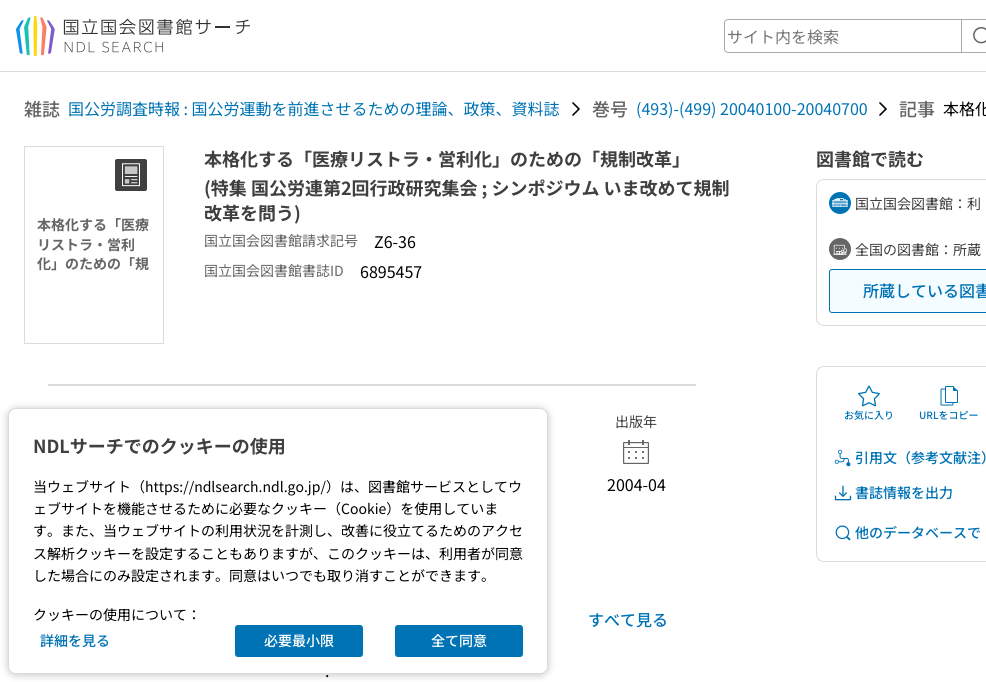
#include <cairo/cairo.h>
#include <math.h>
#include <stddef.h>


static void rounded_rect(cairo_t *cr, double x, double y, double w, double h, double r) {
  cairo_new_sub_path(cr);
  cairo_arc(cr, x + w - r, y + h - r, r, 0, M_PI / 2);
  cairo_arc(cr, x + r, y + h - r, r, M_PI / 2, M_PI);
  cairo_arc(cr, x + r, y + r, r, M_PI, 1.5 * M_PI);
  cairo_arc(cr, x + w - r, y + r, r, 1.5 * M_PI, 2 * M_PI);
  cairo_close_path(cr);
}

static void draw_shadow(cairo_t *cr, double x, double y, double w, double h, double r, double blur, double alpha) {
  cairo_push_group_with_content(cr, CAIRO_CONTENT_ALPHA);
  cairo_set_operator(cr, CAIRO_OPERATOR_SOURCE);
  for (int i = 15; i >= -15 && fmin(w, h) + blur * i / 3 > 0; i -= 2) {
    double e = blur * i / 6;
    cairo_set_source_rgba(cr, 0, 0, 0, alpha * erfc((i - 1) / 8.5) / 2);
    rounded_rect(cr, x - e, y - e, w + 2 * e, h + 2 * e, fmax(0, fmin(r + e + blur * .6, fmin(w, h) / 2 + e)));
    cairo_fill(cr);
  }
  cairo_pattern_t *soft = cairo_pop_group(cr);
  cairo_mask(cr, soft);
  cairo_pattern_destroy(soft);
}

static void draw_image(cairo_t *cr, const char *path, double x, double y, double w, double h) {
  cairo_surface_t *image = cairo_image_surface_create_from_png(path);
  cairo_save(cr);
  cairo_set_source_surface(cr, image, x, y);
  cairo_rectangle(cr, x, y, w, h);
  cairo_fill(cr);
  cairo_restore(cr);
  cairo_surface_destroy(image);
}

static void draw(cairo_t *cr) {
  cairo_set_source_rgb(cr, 1, 1, 1);
  cairo_paint(cr);
  cairo_set_source_rgb(cr, 219 / 255.0, 219 / 255.0, 219 / 255.0);
  cairo_rectangle(cr, 0, 71, 986, 1);
  cairo_fill(cr);
  draw_image(cr, "images/1.png", 16, 16, 234, 40);
  rounded_rect(cr, 724.5, 19.5, 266, 33, 3.5);
  cairo_set_source_rgb(cr, 170 / 255.0, 170 / 255.0, 170 / 255.0);
  cairo_set_line_width(cr, 1);
  cairo_stroke(cr);
  cairo_rectangle(cr, 961, 19, 1, 34);
  cairo_fill(cr);
  draw_image(cr, "images/2.png", 973, 27, 13, 17);
  draw_image(cr, "images/3.png", 572, 102, 8, 14);
  draw_image(cr, "images/3.png", 879, 102, 8, 14);
  cairo_rectangle(cr, 24.5, 146.5, 139, 197);
  cairo_set_source_rgb(cr, 219 / 255.0, 219 / 255.0, 219 / 255.0);
  cairo_stroke(cr);
  draw_image(cr, "images/4.png", 115, 159, 32, 32);
  cairo_rectangle(cr, 48, 384, 648, 2);
  cairo_fill(cr);
  draw_image(cr, "images/5.png", 623, 440, 26, 24);
  rounded_rect(cr, 816.5, 179.5, 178, 146, 7.5);
  cairo_stroke(cr);
  draw_image(cr, "images/6.png", 829, 192, 22, 22);
  draw_image(cr, "images/7.png", 829, 238, 22, 22);
  cairo_set_source_rgb(cr, 245 / 255.0, 252 / 255.0, 1);
  rounded_rect(cr, 829.5, 269.5, 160, 43, 2.5);
  cairo_fill_preserve(cr);
  cairo_set_source_rgb(cr, 0, 115 / 255.0, 181 / 255.0);
  cairo_stroke(cr);
  rounded_rect(cr, 816.5, 366.5, 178, 195, 7.5);
  cairo_set_source_rgb(cr, 219 / 255.0, 219 / 255.0, 219 / 255.0);
  cairo_stroke(cr);
  draw_image(cr, "images/8.png", 858, 385, 22, 22);
  draw_image(cr, "images/9.png", 940, 386, 18, 20);
  draw_image(cr, "images/10.png", 834, 449, 17, 18);
  draw_image(cr, "images/11.png", 834, 485, 18, 16);
  draw_image(cr, "images/12.png", 835, 525, 16, 16);
  cairo_set_source_rgb(cr, 0, 0, 0);
  draw_shadow(cr, 8, 409, 540, 266, 8, 4, 0.24);
  cairo_set_source_rgb(cr, 1, 1, 1);
  rounded_rect(cr, 8.5, 408.5, 539, 265, 7.5);
  cairo_fill_preserve(cr);
  cairo_set_source_rgb(cr, 219 / 255.0, 219 / 255.0, 219 / 255.0);
  cairo_stroke(cr);
  cairo_set_source_rgb(cr, 1, 1, 1);
  cairo_new_path(cr);
  cairo_move_to(cr, 9, 587);
  cairo_line_to(cr, 547, 587);
  cairo_line_to(cr, 547, 666);
  cairo_curve_to(cr, 547, 670, 544, 673, 540, 673);
  cairo_line_to(cr, 16, 673);
  cairo_curve_to(cr, 12, 673, 9, 670, 9, 666);
  cairo_close_path(cr);
  cairo_fill(cr);
  cairo_set_source_rgb(cr, 0, 115 / 255.0, 181 / 255.0);
  rounded_rect(cr, 235.5, 625.5, 127, 31, 2.5);
  cairo_fill_preserve(cr);
  cairo_stroke(cr);
  rounded_rect(cr, 395.5, 625.5, 127, 31, 2.5);
  cairo_fill_preserve(cr);
  cairo_stroke(cr);
  cairo_select_font_face(cr, "Noto Sans JP", CAIRO_FONT_SLANT_NORMAL, CAIRO_FONT_WEIGHT_NORMAL);
  cairo_set_font_size(cr, 16);
  cairo_set_source_rgb(cr, 118 / 255.0, 118 / 255.0, 118 / 255.0);
  cairo_move_to(cr, 727, 43);
  cairo_show_text(cr, "サイト内を検索");
  cairo_select_font_face(cr, "Noto Sans JP Medium", CAIRO_FONT_SLANT_NORMAL, CAIRO_FONT_WEIGHT_NORMAL);
  cairo_set_font_size(cr, 18);
  cairo_set_source_rgb(cr, 102 / 255.0, 102 / 255.0, 102 / 255.0);
  cairo_move_to(cr, 24, 116);
  cairo_show_text(cr, "雑誌");
  cairo_select_font_face(cr, "Noto Sans JP", CAIRO_FONT_SLANT_NORMAL, CAIRO_FONT_WEIGHT_NORMAL);
  cairo_set_font_size(cr, 16);
  cairo_set_source_rgb(cr, 0, 115 / 255.0, 181 / 255.0);
  cairo_move_to(cr, 68, 115);
  cairo_show_text(cr, "国公労調査時報 : 国公労運動を前進させるための理論、政策、資料誌");
  cairo_select_font_face(cr, "Noto Sans JP Medium", CAIRO_FONT_SLANT_NORMAL, CAIRO_FONT_WEIGHT_NORMAL);
  cairo_set_font_size(cr, 18);
  cairo_set_source_rgb(cr, 102 / 255.0, 102 / 255.0, 102 / 255.0);
  cairo_move_to(cr, 592, 116);
  cairo_show_text(cr, "巻号");
  cairo_select_font_face(cr, "Noto Sans JP", CAIRO_FONT_SLANT_NORMAL, CAIRO_FONT_WEIGHT_NORMAL);
  cairo_set_font_size(cr, 16);
  cairo_set_source_rgb(cr, 0, 115 / 255.0, 181 / 255.0);
  cairo_move_to(cr, 636, 115);
  cairo_show_text(cr, "(493)-(499) 20040100-20040700");
  cairo_select_font_face(cr, "Noto Sans JP Medium", CAIRO_FONT_SLANT_NORMAL, CAIRO_FONT_WEIGHT_NORMAL);
  cairo_set_font_size(cr, 18);
  cairo_set_source_rgb(cr, 102 / 255.0, 102 / 255.0, 102 / 255.0);
  cairo_move_to(cr, 899, 116);
  cairo_show_text(cr, "記事");
  cairo_select_font_face(cr, "Noto Sans JP", CAIRO_FONT_SLANT_NORMAL, CAIRO_FONT_WEIGHT_NORMAL);
  cairo_set_font_size(cr, 16);
  cairo_set_source_rgb(cr, 0, 0, 0);
  cairo_move_to(cr, 943, 115);
  cairo_show_text(cr, "本格化");
  cairo_select_font_face(cr, "Noto Sans JP", CAIRO_FONT_SLANT_NORMAL, CAIRO_FONT_WEIGHT_BOLD);
  cairo_set_font_size(cr, 14);
  cairo_set_source_rgb(cr, 102 / 255.0, 102 / 255.0, 102 / 255.0);
  cairo_move_to(cr, 37, 230);
  cairo_show_text(cr, "本格化する「医療");
  cairo_move_to(cr, 37, 250);
  cairo_show_text(cr, "リストラ・営利");
  cairo_move_to(cr, 37, 269);
  cairo_show_text(cr, "化」のための「規");
  cairo_set_font_size(cr, 18);
  cairo_set_source_rgb(cr, 64 / 255.0, 64 / 255.0, 64 / 255.0);
  cairo_move_to(cr, 204, 166);
  cairo_show_text(cr, "本格化する「医療リストラ・営利化」のための「規制改革」");
  cairo_move_to(cr, 204, 195);
  cairo_show_text(cr, "(特集 国公労連第2回行政研究集会 ; シンポジウム いま改めて規制");
  cairo_move_to(cr, 204, 220);
  cairo_show_text(cr, "改革を問う)");
  cairo_select_font_face(cr, "Noto Sans JP", CAIRO_FONT_SLANT_NORMAL, CAIRO_FONT_WEIGHT_NORMAL);
  cairo_set_font_size(cr, 14);
  cairo_set_source_rgb(cr, 102 / 255.0, 102 / 255.0, 102 / 255.0);
  cairo_move_to(cr, 204, 246);
  cairo_show_text(cr, "国立国会図書館請求記号");
  cairo_set_font_size(cr, 16);
  cairo_set_source_rgb(cr, 0, 0, 0);
  cairo_move_to(cr, 374, 248);
  cairo_show_text(cr, "Z6-36");
  cairo_set_font_size(cr, 14);
  cairo_set_source_rgb(cr, 102 / 255.0, 102 / 255.0, 102 / 255.0);
  cairo_move_to(cr, 204, 276);
  cairo_show_text(cr, "国立国会図書館書誌ID");
  cairo_set_font_size(cr, 16);
  cairo_set_source_rgb(cr, 0, 0, 0);
  cairo_move_to(cr, 360, 278);
  cairo_show_text(cr, "6895457");
  cairo_set_font_size(cr, 14);
  cairo_set_source_rgb(cr, 64 / 255.0, 64 / 255.0, 64 / 255.0);
  cairo_move_to(cr, 615, 427);
  cairo_show_text(cr, "出版年");
  cairo_set_font_size(cr, 16);
  cairo_set_source_rgb(cr, 0, 0, 0);
  cairo_move_to(cr, 607, 491);
  cairo_show_text(cr, "2004-04");
  cairo_select_font_face(cr, "Noto Sans JP Medium", CAIRO_FONT_SLANT_NORMAL, CAIRO_FONT_WEIGHT_NORMAL);
  cairo_set_source_rgb(cr, 0, 115 / 255.0, 181 / 255.0);
  cairo_move_to(cr, 588, 626);
  cairo_show_text(cr, "すべて見る");
  cairo_select_font_face(cr, "Noto Sans JP", CAIRO_FONT_SLANT_NORMAL, CAIRO_FONT_WEIGHT_NORMAL);
  cairo_set_source_rgb(cr, 0, 0, 0);
  cairo_move_to(cr, 325, 677);
  cairo_show_text(cr, ".");
  cairo_select_font_face(cr, "Noto Sans JP", CAIRO_FONT_SLANT_NORMAL, CAIRO_FONT_WEIGHT_BOLD);
  cairo_set_font_size(cr, 18);
  cairo_set_source_rgb(cr, 64 / 255.0, 64 / 255.0, 64 / 255.0);
  cairo_move_to(cr, 816, 166);
  cairo_show_text(cr, "図書館で読む");
  cairo_select_font_face(cr, "Noto Sans JP", CAIRO_FONT_SLANT_NORMAL, CAIRO_FONT_WEIGHT_NORMAL);
  cairo_set_font_size(cr, 14);
  cairo_move_to(cr, 855, 209);
  cairo_show_text(cr, "国立国会図書館：利");
  cairo_move_to(cr, 855, 255);
  cairo_show_text(cr, "全国の図書館：所蔵");
  cairo_select_font_face(cr, "Noto Sans JP Medium", CAIRO_FONT_SLANT_NORMAL, CAIRO_FONT_WEIGHT_NORMAL);
  cairo_set_font_size(cr, 16);
  cairo_set_source_rgb(cr, 0, 115 / 255.0, 181 / 255.0);
  cairo_move_to(cr, 863, 297);
  cairo_show_text(cr, "所蔵している図書");
  cairo_set_font_size(cr, 10);
  cairo_move_to(cr, 844, 419);
  cairo_show_text(cr, "お気に入り");
  cairo_move_to(cr, 919, 419);
  cairo_show_text(cr, "URLをコピー");
  cairo_set_font_size(cr, 14);
  cairo_move_to(cr, 855, 463);
  cairo_show_text(cr, "引用文（参考文献注）");
  cairo_move_to(cr, 855, 498);
  cairo_show_text(cr, "書誌情報を出力");
  cairo_move_to(cr, 855, 538);
  cairo_show_text(cr, "他のデータベースで");
  cairo_select_font_face(cr, "Noto Sans JP", CAIRO_FONT_SLANT_NORMAL, CAIRO_FONT_WEIGHT_BOLD);
  cairo_set_font_size(cr, 18);
  cairo_set_source_rgb(cr, 64 / 255.0, 64 / 255.0, 64 / 255.0);
  cairo_move_to(cr, 33, 453);
  cairo_show_text(cr, "NDLサーチでのクッキーの使用");
  cairo_select_font_face(cr, "Noto Sans JP", CAIRO_FONT_SLANT_NORMAL, CAIRO_FONT_WEIGHT_NORMAL);
  cairo_set_font_size(cr, 14);
  cairo_set_source_rgb(cr, 0, 0, 0);
  cairo_move_to(cr, 33, 492);
  cairo_show_text(cr, "当ウェブサイト（https://ndlsearch.ndl.go.jp/）は、図書館サービスとしてウ");
  cairo_move_to(cr, 33, 514);
  cairo_show_text(cr, "ェブサイトを機能させるために必要なクッキー（Cookie）を使用していま");
  cairo_move_to(cr, 33, 536);
  cairo_show_text(cr, "す。また、当ウェブサイトの利用状況を計測し、改善に役立てるためのアクセ");
  cairo_move_to(cr, 33, 559);
  cairo_show_text(cr, "ス解析クッキーを設定することもありますが、このクッキーは、利用者が同意");
  cairo_move_to(cr, 33, 581);
  cairo_show_text(cr, "した場合にのみ設定されます。同意はいつでも取り消すことができます。");
  cairo_move_to(cr, 33, 620);
  cairo_show_text(cr, "クッキーの使用について：");
  cairo_select_font_face(cr, "Noto Sans JP Medium", CAIRO_FONT_SLANT_NORMAL, CAIRO_FONT_WEIGHT_NORMAL);
  cairo_set_source_rgb(cr, 0, 115 / 255.0, 181 / 255.0);
  cairo_move_to(cr, 40, 646);
  cairo_show_text(cr, "詳細を見る");
  cairo_set_source_rgb(cr, 1, 1, 1);
  cairo_move_to(cr, 264, 646);
  cairo_show_text(cr, "必要最小限");
  cairo_move_to(cr, 431, 646);
  cairo_show_text(cr, "全て同意");
}

int main(void) {
  cairo_surface_t *surface = cairo_image_surface_create(CAIRO_FORMAT_RGB24, 986, 682);
  cairo_t *cr = cairo_create(surface);
  cairo_font_options_t *options = cairo_font_options_create();
  cairo_font_options_set_hint_metrics(options, CAIRO_HINT_METRICS_OFF);
  cairo_font_options_set_hint_style(options, CAIRO_HINT_STYLE_NONE);
  cairo_set_font_options(cr, options);
  cairo_set_miter_limit(cr, 4);
  draw(cr);
  cairo_surface_write_to_png(surface, "out.png");
  cairo_font_options_destroy(options);
  cairo_destroy(cr);
  cairo_surface_destroy(surface);
  return 0;
}
